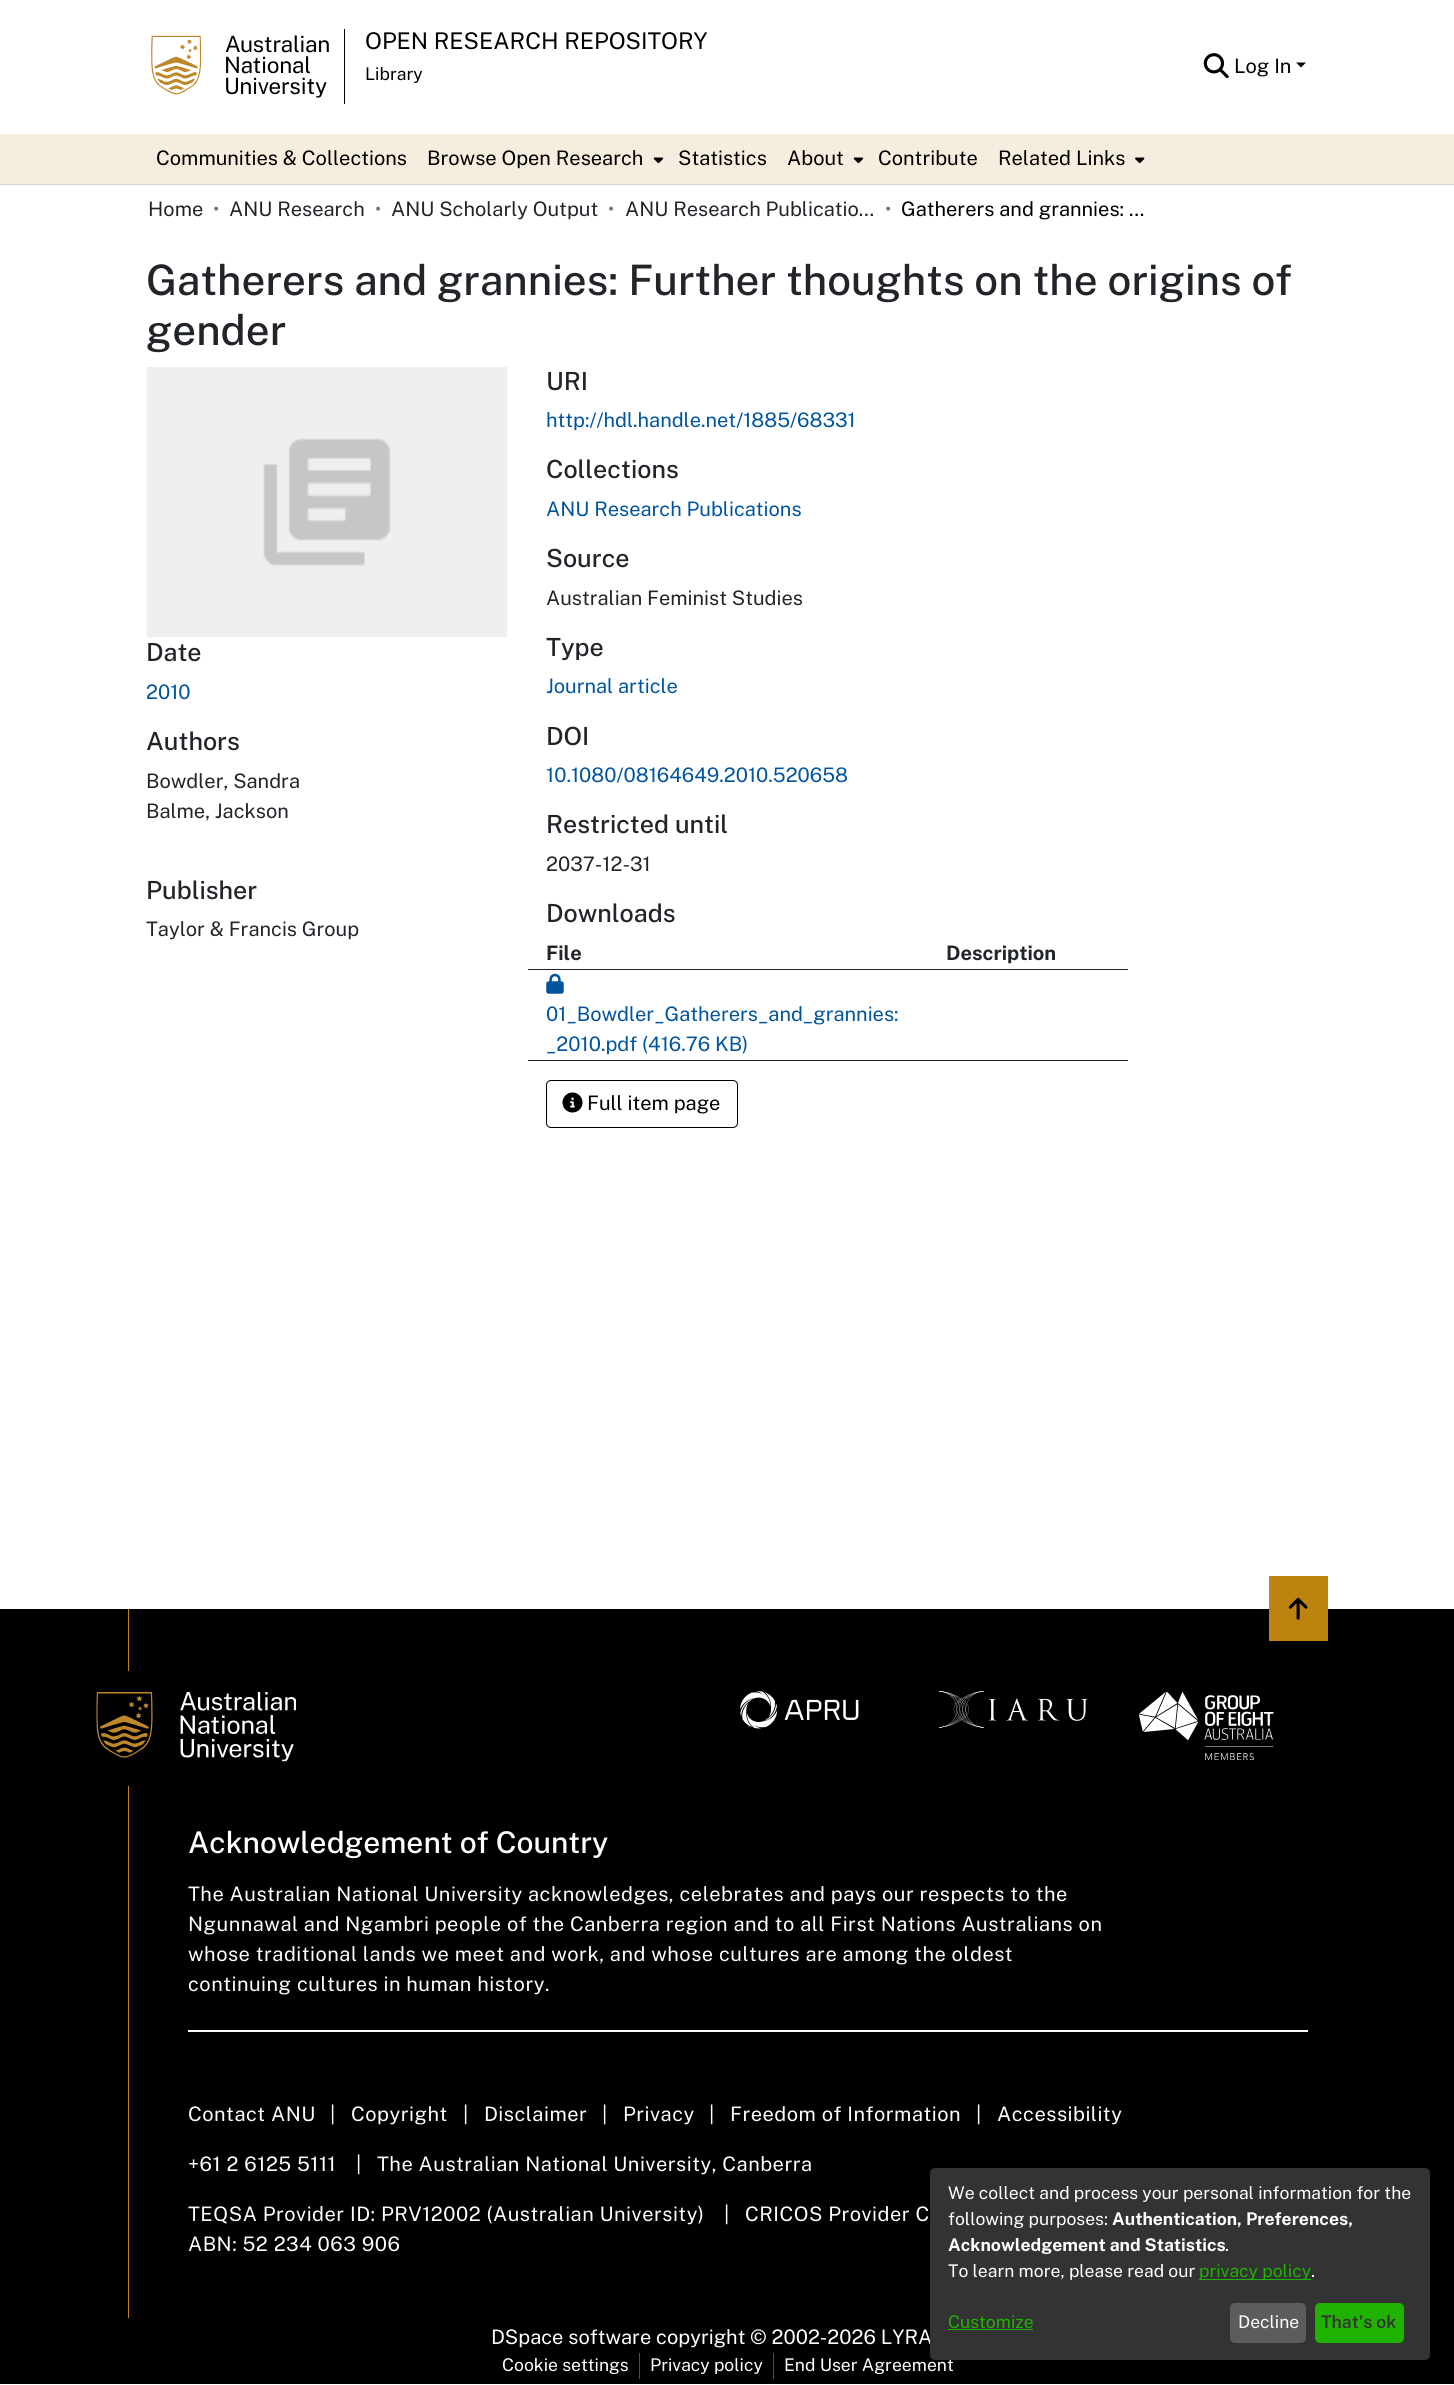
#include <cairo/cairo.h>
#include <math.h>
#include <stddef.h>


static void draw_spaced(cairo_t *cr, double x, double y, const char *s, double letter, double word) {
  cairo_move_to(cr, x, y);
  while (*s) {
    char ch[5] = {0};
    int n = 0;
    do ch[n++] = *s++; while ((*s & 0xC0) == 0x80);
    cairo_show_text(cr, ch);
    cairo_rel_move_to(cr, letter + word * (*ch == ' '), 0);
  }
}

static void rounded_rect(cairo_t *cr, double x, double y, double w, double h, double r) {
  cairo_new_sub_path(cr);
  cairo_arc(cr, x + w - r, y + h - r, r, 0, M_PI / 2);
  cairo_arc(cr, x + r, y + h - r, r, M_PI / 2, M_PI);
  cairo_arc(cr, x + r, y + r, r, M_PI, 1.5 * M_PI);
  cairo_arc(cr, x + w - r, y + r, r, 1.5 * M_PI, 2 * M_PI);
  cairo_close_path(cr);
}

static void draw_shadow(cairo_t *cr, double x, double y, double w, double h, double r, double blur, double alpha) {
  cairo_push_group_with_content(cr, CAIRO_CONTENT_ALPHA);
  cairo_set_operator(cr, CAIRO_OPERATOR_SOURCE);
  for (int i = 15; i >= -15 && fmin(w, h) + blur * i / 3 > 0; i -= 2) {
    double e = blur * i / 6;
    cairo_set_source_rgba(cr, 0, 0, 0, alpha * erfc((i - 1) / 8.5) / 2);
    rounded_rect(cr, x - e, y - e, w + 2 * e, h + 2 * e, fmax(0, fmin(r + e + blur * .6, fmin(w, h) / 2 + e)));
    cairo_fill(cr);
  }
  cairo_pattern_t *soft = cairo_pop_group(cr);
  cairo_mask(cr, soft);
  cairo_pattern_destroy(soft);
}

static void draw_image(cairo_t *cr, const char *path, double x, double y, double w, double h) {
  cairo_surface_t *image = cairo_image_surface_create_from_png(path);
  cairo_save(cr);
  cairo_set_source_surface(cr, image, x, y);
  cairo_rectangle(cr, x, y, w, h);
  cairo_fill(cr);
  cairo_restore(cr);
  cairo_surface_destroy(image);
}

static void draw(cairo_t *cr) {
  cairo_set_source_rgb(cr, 1, 1, 1);
  cairo_paint(cr);
  cairo_set_source_rgb(cr, 206 / 255.0, 212 / 255.0, 218 / 255.0);
  cairo_rectangle(cr, 0, 184, 1454, 1);
  cairo_fill(cr);
  cairo_set_source_rgb(cr, 0, 0, 0);
  cairo_rectangle(cr, 344, 29, 1, 75);
  cairo_fill(cr);
  draw_image(cr, "images/1.png", 151, 35, 178, 63);
  draw_image(cr, "images/2.png", 1203, 53, 26, 26);
  cairo_new_path(cr);
  cairo_move_to(cr, 1296, 62.5);
  cairo_line_to(cr, 1306, 62.5);
  cairo_line_to(cr, 1301, 67.5);
  cairo_close_path(cr);
  cairo_fill(cr);
  cairo_set_source_rgb(cr, 245 / 255.0, 237 / 255.0, 222 / 255.0);
  cairo_rectangle(cr, 0, 134, 1454, 50);
  cairo_fill(cr);
  draw_image(cr, "images/3.png", 653, 157, 11, 7);
  draw_image(cr, "images/3.png", 853, 157, 11, 7);
  draw_image(cr, "images/4.png", 1135, 157, 10, 7);
  draw_image(cr, "images/5.png", 146, 367, 362, 271);
  cairo_set_source_rgb(cr, 33 / 255.0, 37 / 255.0, 41 / 255.0);
  cairo_rectangle(cr, 528, 969, 600, 1);
  cairo_fill(cr);
  cairo_rectangle(cr, 528, 1060, 600, 1);
  cairo_fill(cr);
  draw_image(cr, "images/6.png", 546, 973, 18, 21);
  rounded_rect(cr, 546.5, 1080.5, 191, 47, 4.5);
  cairo_set_source_rgb(cr, 0, 0, 0);
  cairo_set_line_width(cr, 1);
  cairo_stroke(cr);
  draw_image(cr, "images/7.png", 562, 1092, 21, 21);
  cairo_rectangle(cr, 0, 1609, 1454, 775);
  cairo_fill(cr);
  cairo_set_source_rgb(cr, 190 / 255.0, 131 / 255.0, 14 / 255.0);
  cairo_rectangle(cr, 128, 1609, 1, 709);
  cairo_fill(cr);
  cairo_set_source_rgb(cr, 0, 0, 0);
  cairo_rectangle(cr, 128, 1671, 1, 115);
  cairo_fill(cr);
  draw_image(cr, "images/8.png", 96, 1692, 200, 70);
  draw_image(cr, "images/9.png", 740, 1691, 119, 38);
  draw_image(cr, "images/10.png", 939, 1691, 149, 37);
  draw_image(cr, "images/11.png", 1139, 1692, 135, 68);
  cairo_set_source_rgb(cr, 1, 1, 1);
  cairo_rectangle(cr, 188, 2030, 1120, 2);
  cairo_fill(cr);
  cairo_set_source_rgb(cr, 190 / 255.0, 131 / 255.0, 14 / 255.0);
  cairo_rectangle(cr, 1269, 1576, 59, 65);
  cairo_fill(cr);
  draw_image(cr, "images/12.png", 1289, 1597, 19, 23);
  cairo_set_source_rgb(cr, 73 / 255.0, 80 / 255.0, 87 / 255.0);
  cairo_rectangle(cr, 639, 2353, 1, 26);
  cairo_fill(cr);
  cairo_rectangle(cr, 773, 2353, 1, 26);
  cairo_fill(cr);
  cairo_set_source_rgb(cr, 0, 0, 0);
  draw_shadow(cr, 936, 2174, 500, 192, 5, 6, 0.19);
  draw_shadow(cr, 930, 2173, 500, 192, 5, 4, 0.2);
  cairo_select_font_face(cr, "Public Sans", CAIRO_FONT_SLANT_NORMAL, CAIRO_FONT_WEIGHT_NORMAL);
  cairo_set_font_size(cr, 23);
  cairo_set_source_rgb(cr, 0, 0, 0);
  cairo_move_to(cr, 365, 49);
  cairo_show_text(cr, "OPEN RESEARCH REPOSITORY");
  cairo_set_font_size(cr, 17.5);
  cairo_move_to(cr, 365, 80);
  cairo_show_text(cr, "Library");
  cairo_set_font_size(cr, 20);
  cairo_move_to(cr, 1234, 73);
  cairo_show_text(cr, "Log In");
  cairo_move_to(cr, 156, 165);
  cairo_show_text(cr, "Communities & Collections");
  cairo_move_to(cr, 427, 165);
  cairo_show_text(cr, "Browse Open Research");
  cairo_move_to(cr, 678, 165);
  cairo_show_text(cr, "Statistics");
  cairo_move_to(cr, 787, 165);
  cairo_show_text(cr, "About");
  cairo_move_to(cr, 878, 165);
  cairo_show_text(cr, "Contribute");
  cairo_move_to(cr, 998, 165);
  cairo_show_text(cr, "Related Links");
  cairo_set_source_rgb(cr, 33 / 255.0, 37 / 255.0, 41 / 255.0);
  cairo_move_to(cr, 148, 216);
  cairo_show_text(cr, "Home");
  cairo_set_source_rgb(cr, 108 / 255.0, 117 / 255.0, 125 / 255.0);
  cairo_move_to(cr, 213, 216);
  cairo_show_text(cr, "•");
  cairo_set_source_rgb(cr, 33 / 255.0, 37 / 255.0, 41 / 255.0);
  cairo_move_to(cr, 229, 216);
  cairo_show_text(cr, "ANU Research");
  cairo_set_source_rgb(cr, 108 / 255.0, 117 / 255.0, 125 / 255.0);
  cairo_move_to(cr, 375, 216);
  cairo_show_text(cr, "•");
  cairo_set_source_rgb(cr, 33 / 255.0, 37 / 255.0, 41 / 255.0);
  cairo_move_to(cr, 391, 216);
  cairo_show_text(cr, "ANU Scholarly Output");
  cairo_set_source_rgb(cr, 108 / 255.0, 117 / 255.0, 125 / 255.0);
  cairo_move_to(cr, 608, 216);
  cairo_show_text(cr, "•");
  cairo_set_source_rgb(cr, 33 / 255.0, 37 / 255.0, 41 / 255.0);
  cairo_move_to(cr, 625, 216);
  cairo_show_text(cr, "ANU Research Publicatio…");
  cairo_set_source_rgb(cr, 108 / 255.0, 117 / 255.0, 125 / 255.0);
  cairo_move_to(cr, 885, 216);
  cairo_show_text(cr, "•");
  cairo_set_source_rgb(cr, 0, 0, 0);
  cairo_move_to(cr, 901, 216);
  cairo_show_text(cr, "Gatherers and grannies: …");
  cairo_select_font_face(cr, "Public Sans Medium", CAIRO_FONT_SLANT_NORMAL, CAIRO_FONT_WEIGHT_NORMAL);
  cairo_set_font_size(cr, 42);
  cairo_set_source_rgb(cr, 33 / 255.0, 37 / 255.0, 41 / 255.0);
  cairo_move_to(cr, 146, 295);
  cairo_show_text(cr, "Gatherers and grannies: Further thoughts on the origins of");
  cairo_move_to(cr, 146, 345);
  cairo_show_text(cr, "gender");
  cairo_set_font_size(cr, 25);
  cairo_move_to(cr, 146, 661);
  cairo_show_text(cr, "Date");
  cairo_select_font_face(cr, "Public Sans", CAIRO_FONT_SLANT_NORMAL, CAIRO_FONT_WEIGHT_NORMAL);
  cairo_set_font_size(cr, 20);
  cairo_set_source_rgb(cr, 0, 84 / 255.0, 158 / 255.0);
  cairo_move_to(cr, 146, 699);
  cairo_show_text(cr, "2010");
  cairo_select_font_face(cr, "Public Sans Medium", CAIRO_FONT_SLANT_NORMAL, CAIRO_FONT_WEIGHT_NORMAL);
  cairo_set_font_size(cr, 25);
  cairo_set_source_rgb(cr, 33 / 255.0, 37 / 255.0, 41 / 255.0);
  cairo_move_to(cr, 146, 750);
  cairo_show_text(cr, "Authors");
  cairo_select_font_face(cr, "Public Sans", CAIRO_FONT_SLANT_NORMAL, CAIRO_FONT_WEIGHT_NORMAL);
  cairo_set_font_size(cr, 20);
  cairo_move_to(cr, 146, 788);
  cairo_show_text(cr, "Bowdler, Sandra");
  cairo_move_to(cr, 146, 818);
  cairo_show_text(cr, "Balme, Jackson");
  cairo_select_font_face(cr, "Public Sans Medium", CAIRO_FONT_SLANT_NORMAL, CAIRO_FONT_WEIGHT_NORMAL);
  cairo_set_font_size(cr, 25);
  cairo_move_to(cr, 146, 899);
  cairo_show_text(cr, "Publisher");
  cairo_select_font_face(cr, "Public Sans", CAIRO_FONT_SLANT_NORMAL, CAIRO_FONT_WEIGHT_NORMAL);
  cairo_set_font_size(cr, 20);
  cairo_move_to(cr, 146, 936);
  cairo_show_text(cr, "Taylor & Francis Group");
  cairo_select_font_face(cr, "Public Sans Medium", CAIRO_FONT_SLANT_NORMAL, CAIRO_FONT_WEIGHT_NORMAL);
  cairo_set_font_size(cr, 25);
  cairo_move_to(cr, 546, 390);
  cairo_show_text(cr, "URI");
  cairo_select_font_face(cr, "Public Sans", CAIRO_FONT_SLANT_NORMAL, CAIRO_FONT_WEIGHT_NORMAL);
  cairo_set_font_size(cr, 20);
  cairo_set_source_rgb(cr, 0, 84 / 255.0, 158 / 255.0);
  cairo_move_to(cr, 546, 427);
  cairo_show_text(cr, "http://hdl.handle.net/1885/68331");
  cairo_select_font_face(cr, "Public Sans Medium", CAIRO_FONT_SLANT_NORMAL, CAIRO_FONT_WEIGHT_NORMAL);
  cairo_set_font_size(cr, 25);
  cairo_set_source_rgb(cr, 33 / 255.0, 37 / 255.0, 41 / 255.0);
  cairo_move_to(cr, 546, 478);
  cairo_show_text(cr, "Collections");
  cairo_select_font_face(cr, "Public Sans", CAIRO_FONT_SLANT_NORMAL, CAIRO_FONT_WEIGHT_NORMAL);
  cairo_set_font_size(cr, 20);
  cairo_set_source_rgb(cr, 0, 84 / 255.0, 158 / 255.0);
  cairo_move_to(cr, 546, 516);
  cairo_show_text(cr, "ANU Research Publications");
  cairo_select_font_face(cr, "Public Sans Medium", CAIRO_FONT_SLANT_NORMAL, CAIRO_FONT_WEIGHT_NORMAL);
  cairo_set_font_size(cr, 25);
  cairo_set_source_rgb(cr, 33 / 255.0, 37 / 255.0, 41 / 255.0);
  cairo_move_to(cr, 546, 567);
  cairo_show_text(cr, "Source");
  cairo_select_font_face(cr, "Public Sans", CAIRO_FONT_SLANT_NORMAL, CAIRO_FONT_WEIGHT_NORMAL);
  cairo_set_font_size(cr, 20);
  cairo_move_to(cr, 546, 605);
  cairo_show_text(cr, "Australian Feminist Studies");
  cairo_select_font_face(cr, "Public Sans Medium", CAIRO_FONT_SLANT_NORMAL, CAIRO_FONT_WEIGHT_NORMAL);
  cairo_set_font_size(cr, 25);
  cairo_move_to(cr, 546, 656);
  cairo_show_text(cr, "Type");
  cairo_select_font_face(cr, "Public Sans", CAIRO_FONT_SLANT_NORMAL, CAIRO_FONT_WEIGHT_NORMAL);
  cairo_set_font_size(cr, 20);
  cairo_set_source_rgb(cr, 0, 84 / 255.0, 158 / 255.0);
  cairo_move_to(cr, 546, 693);
  cairo_show_text(cr, "Journal article");
  cairo_select_font_face(cr, "Public Sans Medium", CAIRO_FONT_SLANT_NORMAL, CAIRO_FONT_WEIGHT_NORMAL);
  cairo_set_font_size(cr, 25);
  cairo_set_source_rgb(cr, 33 / 255.0, 37 / 255.0, 41 / 255.0);
  cairo_move_to(cr, 546, 745);
  cairo_show_text(cr, "DOI");
  cairo_select_font_face(cr, "Public Sans", CAIRO_FONT_SLANT_NORMAL, CAIRO_FONT_WEIGHT_NORMAL);
  cairo_set_font_size(cr, 20);
  cairo_set_source_rgb(cr, 0, 84 / 255.0, 158 / 255.0);
  cairo_move_to(cr, 546, 782);
  cairo_show_text(cr, "10.1080/08164649.2010.520658");
  cairo_select_font_face(cr, "Public Sans Medium", CAIRO_FONT_SLANT_NORMAL, CAIRO_FONT_WEIGHT_NORMAL);
  cairo_set_font_size(cr, 25);
  cairo_set_source_rgb(cr, 33 / 255.0, 37 / 255.0, 41 / 255.0);
  cairo_move_to(cr, 546, 833);
  cairo_show_text(cr, "Restricted until");
  cairo_select_font_face(cr, "Public Sans", CAIRO_FONT_SLANT_NORMAL, CAIRO_FONT_WEIGHT_NORMAL);
  cairo_set_font_size(cr, 20);
  cairo_move_to(cr, 546, 871);
  cairo_show_text(cr, "2037-12-31");
  cairo_select_font_face(cr, "Public Sans Medium", CAIRO_FONT_SLANT_NORMAL, CAIRO_FONT_WEIGHT_NORMAL);
  cairo_set_font_size(cr, 25);
  cairo_move_to(cr, 546, 922);
  cairo_show_text(cr, "Downloads");
  cairo_select_font_face(cr, "Public Sans", CAIRO_FONT_SLANT_NORMAL, CAIRO_FONT_WEIGHT_BOLD);
  cairo_set_font_size(cr, 20);
  cairo_move_to(cr, 546, 960);
  cairo_show_text(cr, "File");
  cairo_move_to(cr, 946, 960);
  cairo_show_text(cr, "Description");
  cairo_select_font_face(cr, "Public Sans", CAIRO_FONT_SLANT_NORMAL, CAIRO_FONT_WEIGHT_NORMAL);
  cairo_set_source_rgb(cr, 0, 84 / 255.0, 158 / 255.0);
  cairo_move_to(cr, 546, 1021);
  cairo_show_text(cr, "01_Bowdler_Gatherers_and_grannies:");
  cairo_move_to(cr, 546, 1051);
  cairo_show_text(cr, "_2010.pdf (416.76 KB)");
  cairo_set_source_rgb(cr, 0, 0, 0);
  cairo_move_to(cr, 587, 1110);
  cairo_show_text(cr, "Full item page");
  cairo_select_font_face(cr, "Public Sans Medium", CAIRO_FONT_SLANT_NORMAL, CAIRO_FONT_WEIGHT_NORMAL);
  cairo_set_font_size(cr, 29.9);
  cairo_set_source_rgb(cr, 1, 1, 1);
  cairo_move_to(cr, 188, 1853);
  cairo_show_text(cr, "Acknowledgement of Country");
  cairo_select_font_face(cr, "Public Sans", CAIRO_FONT_SLANT_NORMAL, CAIRO_FONT_WEIGHT_NORMAL);
  cairo_set_font_size(cr, 20);
  draw_spaced(cr, 188, 1901, "The Australian National University acknowledges, celebrates and pays our respects to the", 0.5, 0);
  draw_spaced(cr, 188, 1931, "Ngunnawal and Ngambri people of the Canberra region and to all First Nations Australians on", 0.5, 0);
  draw_spaced(cr, 188, 1961, "whose traditional lands we meet and work, and whose cultures are among the oldest", 0.5, 0);
  draw_spaced(cr, 188, 1991, "continuing cultures in human history.", 0.5, 0);
  draw_spaced(cr, 188, 2121, "Contact ANU", 0.5, 0);
  draw_spaced(cr, 330, 2121, "|", 0.5, 0);
  draw_spaced(cr, 351, 2121, "Copyright", 0.5, 0);
  draw_spaced(cr, 463, 2121, "|", 0.5, 0);
  draw_spaced(cr, 484, 2121, "Disclaimer", 0.5, 0);
  draw_spaced(cr, 602, 2121, "|", 0.5, 0);
  draw_spaced(cr, 623, 2121, "Privacy", 0.5, 0);
  draw_spaced(cr, 709, 2121, "|", 0.5, 0);
  draw_spaced(cr, 730, 2121, "Freedom of Information", 0.5, 0);
  draw_spaced(cr, 976, 2121, "|", 0.5, 0);
  draw_spaced(cr, 997, 2121, "Accessibility", 0.5, 0);
  draw_spaced(cr, 188, 2171, "+61 2 6125 5111", 0.5, 0);
  draw_spaced(cr, 356, 2171, "|", 0.5, 0);
  draw_spaced(cr, 377, 2171, "The Australian National University, Canberra", 0.5, 0);
  draw_spaced(cr, 188, 2221, "TEQSA Provider ID: PRV12002 (Australian University)", 0.5, 0);
  draw_spaced(cr, 724, 2221, "|", 0.5, 0);
  draw_spaced(cr, 745, 2221, "CRICOS Provider C", 0.5, 0);
  draw_spaced(cr, 188, 2251, "ABN: 52 234 063 906", 0.5, 0);
  cairo_move_to(cr, 491, 2344);
  cairo_show_text(cr, "DSpace software copyright © 2002-2026 LYRA");
  cairo_set_font_size(cr, 17.5);
  cairo_move_to(cr, 502, 2371);
  cairo_show_text(cr, "Cookie settings");
  cairo_move_to(cr, 650, 2371);
  cairo_show_text(cr, "Privacy policy");
  cairo_move_to(cr, 784, 2371);
  cairo_show_text(cr, "End User Agreement");
  cairo_set_source_rgb(cr, 51 / 255.0, 51 / 255.0, 51 / 255.0);
  rounded_rect(cr, 930, 2168, 500, 192, 5);
  cairo_fill(cr);
  cairo_set_source_rgb(cr, 1, 1, 1);
  cairo_move_to(cr, 948, 2199);
  cairo_show_text(cr, "We collect and process your personal information for the");
  cairo_move_to(cr, 948, 2225);
  cairo_show_text(cr, "following purposes:");
  cairo_select_font_face(cr, "Public Sans", CAIRO_FONT_SLANT_NORMAL, CAIRO_FONT_WEIGHT_BOLD);
  cairo_move_to(cr, 1112, 2225);
  cairo_show_text(cr, "Authentication, Preferences,");
  cairo_move_to(cr, 948, 2251);
  cairo_show_text(cr, "Acknowledgement and Statistics");
  cairo_select_font_face(cr, "Public Sans", CAIRO_FONT_SLANT_NORMAL, CAIRO_FONT_WEIGHT_NORMAL);
  cairo_move_to(cr, 1225, 2251);
  cairo_show_text(cr, ".");
  cairo_move_to(cr, 948, 2277);
  cairo_show_text(cr, "To learn more, please read our");
  cairo_move_to(cr, 1311, 2277);
  cairo_show_text(cr, ".");
  cairo_set_source_rgb(cr, 31 / 255.0, 179 / 255.0, 0);
  cairo_rectangle(cr, 1199, 2279, 112, 1);
  cairo_fill(cr);
  cairo_move_to(cr, 1199, 2277);
  cairo_show_text(cr, "privacy policy");
  cairo_move_to(cr, 948, 2328);
  cairo_show_text(cr, "Customize");
  cairo_rectangle(cr, 948, 2329, 85, 1);
  cairo_fill(cr);
  cairo_set_source_rgb(cr, 92 / 255.0, 92 / 255.0, 92 / 255.0);
  rounded_rect(cr, 1230, 2303, 76, 40, 5);
  cairo_fill(cr);
  cairo_set_source_rgb(cr, 1, 1, 1);
  cairo_move_to(cr, 1238, 2328);
  cairo_show_text(cr, "Decline");
  cairo_set_source_rgb(cr, 31 / 255.0, 179 / 255.0, 0);
  rounded_rect(cr, 1315, 2303, 89, 40, 5);
  cairo_fill(cr);
  cairo_select_font_face(cr, "Public Sans SemiBold", CAIRO_FONT_SLANT_NORMAL, CAIRO_FONT_WEIGHT_NORMAL);
  cairo_set_source_rgb(cr, 51 / 255.0, 51 / 255.0, 51 / 255.0);
  cairo_move_to(cr, 1321, 2328);
  cairo_show_text(cr, "That's ok");
}

int main(void) {
  cairo_surface_t *surface = cairo_image_surface_create(CAIRO_FORMAT_RGB24, 1454, 2385);
  cairo_t *cr = cairo_create(surface);
  cairo_font_options_t *options = cairo_font_options_create();
  cairo_font_options_set_hint_metrics(options, CAIRO_HINT_METRICS_OFF);
  cairo_font_options_set_hint_style(options, CAIRO_HINT_STYLE_NONE);
  cairo_set_font_options(cr, options);
  cairo_set_miter_limit(cr, 4);
  draw(cr);
  cairo_surface_write_to_png(surface, "out.png");
  cairo_font_options_destroy(options);
  cairo_destroy(cr);
  cairo_surface_destroy(surface);
  return 0;
}
